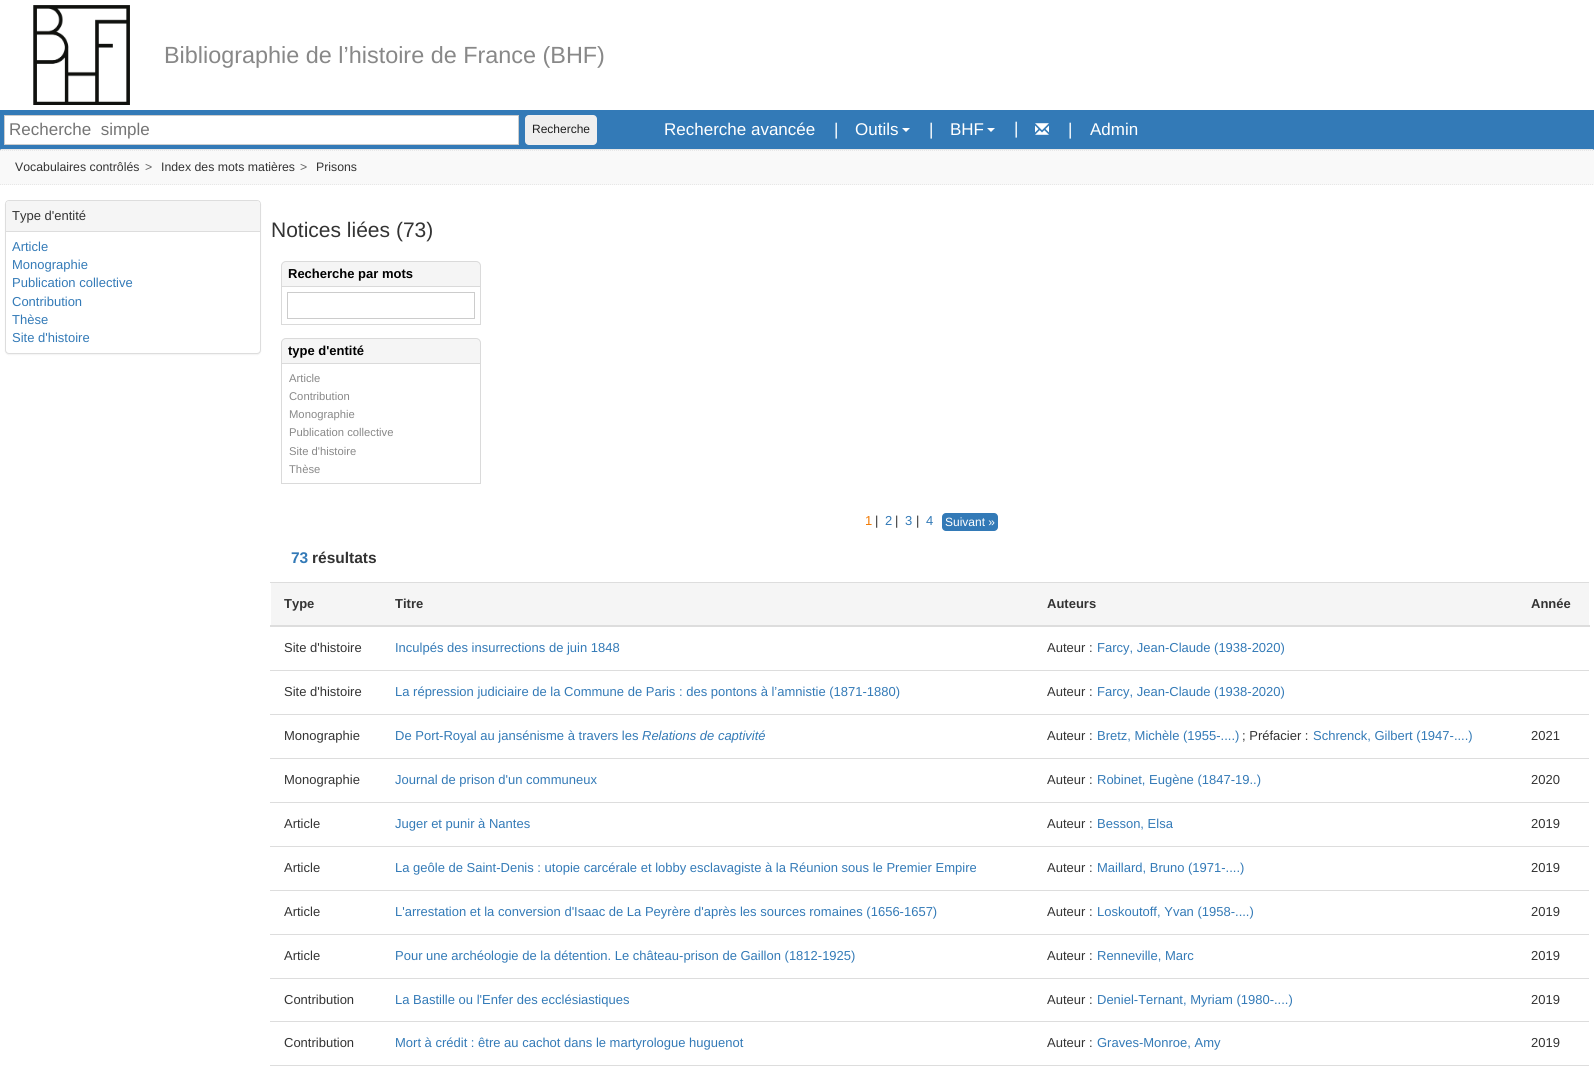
#include <cairo/cairo.h>
#include <math.h>
#include <stddef.h>


static void rounded_rect(cairo_t *cr, double x, double y, double w, double h, double r) {
  cairo_new_sub_path(cr);
  cairo_arc(cr, x + w - r, y + h - r, r, 0, M_PI / 2);
  cairo_arc(cr, x + r, y + h - r, r, M_PI / 2, M_PI);
  cairo_arc(cr, x + r, y + r, r, M_PI, 1.5 * M_PI);
  cairo_arc(cr, x + w - r, y + r, r, 1.5 * M_PI, 2 * M_PI);
  cairo_close_path(cr);
}

static void draw_shadow(cairo_t *cr, double x, double y, double w, double h, double r, double blur, double alpha) {
  cairo_push_group_with_content(cr, CAIRO_CONTENT_ALPHA);
  cairo_set_operator(cr, CAIRO_OPERATOR_SOURCE);
  for (int i = 15; i >= -15 && fmin(w, h) + blur * i / 3 > 0; i -= 2) {
    double e = blur * i / 6;
    cairo_set_source_rgba(cr, 0, 0, 0, alpha * erfc((i - 1) / 8.5) / 2);
    rounded_rect(cr, x - e, y - e, w + 2 * e, h + 2 * e, fmax(0, fmin(r + e + blur * .6, fmin(w, h) / 2 + e)));
    cairo_fill(cr);
  }
  cairo_pattern_t *soft = cairo_pop_group(cr);
  cairo_mask(cr, soft);
  cairo_pattern_destroy(soft);
}

static void draw_image(cairo_t *cr, const char *path, double x, double y, double w, double h) {
  cairo_surface_t *image = cairo_image_surface_create_from_png(path);
  cairo_save(cr);
  cairo_set_source_surface(cr, image, x, y);
  cairo_rectangle(cr, x, y, w, h);
  cairo_fill(cr);
  cairo_restore(cr);
  cairo_surface_destroy(image);
}

static void draw(cairo_t *cr) {
  cairo_set_source_rgb(cr, 1, 1, 1);
  cairo_paint(cr);
  draw_image(cr, "images/1.png", 33, 5, 97, 100);
  cairo_set_source_rgb(cr, 51 / 255.0, 122 / 255.0, 183 / 255.0);
  cairo_rectangle(cr, 0, 110, 1594, 40);
  cairo_fill(cr);
  cairo_set_source_rgb(cr, 231 / 255.0, 231 / 255.0, 231 / 255.0);
  cairo_new_path(cr);
  cairo_move_to(cr, 1594, 150);
  cairo_line_to(cr, 0, 150);
  cairo_line_to(cr, 1, 149);
  cairo_line_to(cr, 1593, 149);
  cairo_close_path(cr);
  cairo_fill(cr);
  cairo_set_source_rgb(cr, 1, 1, 1);
  cairo_rectangle(cr, 4.5, 115.5, 514, 29);
  cairo_fill_preserve(cr);
  cairo_set_source_rgb(cr, 204 / 255.0, 204 / 255.0, 204 / 255.0);
  cairo_set_line_width(cr, 1);
  cairo_stroke(cr);
  cairo_set_source_rgb(cr, 239 / 255.0, 239 / 255.0, 239 / 255.0);
  rounded_rect(cr, 525, 115, 72, 30, 4);
  cairo_fill(cr);
  cairo_set_source_rgb(cr, 1, 1, 1);
  cairo_new_path(cr);
  cairo_move_to(cr, 902, 128);
  cairo_line_to(cr, 910, 128);
  cairo_line_to(cr, 906, 132);
  cairo_close_path(cr);
  cairo_fill(cr);
  cairo_new_path(cr);
  cairo_move_to(cr, 987, 128);
  cairo_line_to(cr, 995, 128);
  cairo_line_to(cr, 991, 132);
  cairo_close_path(cr);
  cairo_fill(cr);
  draw_image(cr, "images/2.png", 1035, 123, 14, 12);
  cairo_set_source_rgb(cr, 249 / 255.0, 249 / 255.0, 249 / 255.0);
  cairo_rectangle(cr, 0, 150, 1594, 35);
  cairo_fill(cr);
  cairo_new_path(cr);
  cairo_move_to(cr, 0, 150.5);
  cairo_line_to(cr, 1594, 150.5);
  cairo_set_source_rgb(cr, 231 / 255.0, 231 / 255.0, 231 / 255.0);
  cairo_set_dash(cr, (double[]){1, 1}, 2, 0);
  cairo_stroke(cr);
  cairo_new_path(cr);
  cairo_move_to(cr, 0, 184.5);
  cairo_line_to(cr, 1594, 184.5);
  cairo_stroke(cr);
  cairo_set_source_rgb(cr, 0, 0, 0);
  draw_shadow(cr, 5, 201, 256, 154, 4, 0.5, 0.05);
  cairo_set_source_rgb(cr, 1, 1, 1);
  rounded_rect(cr, 5.5, 200.5, 255, 153, 3.5);
  cairo_fill_preserve(cr);
  cairo_set_source_rgb(cr, 221 / 255.0, 221 / 255.0, 221 / 255.0);
  cairo_set_dash(cr, NULL, 0, 0);
  cairo_stroke(cr);
  cairo_set_source_rgb(cr, 245 / 255.0, 245 / 255.0, 245 / 255.0);
  cairo_new_path(cr);
  cairo_move_to(cr, 9, 201);
  cairo_line_to(cr, 257, 201);
  cairo_curve_to(cr, 258.5, 201, 260, 202.5, 260, 204);
  cairo_line_to(cr, 260, 232);
  cairo_line_to(cr, 6, 232);
  cairo_line_to(cr, 6, 204);
  cairo_curve_to(cr, 6, 202.5, 7.5, 201, 9, 201);
  cairo_close_path(cr);
  cairo_fill(cr);
  cairo_set_source_rgb(cr, 221 / 255.0, 221 / 255.0, 221 / 255.0);
  cairo_rectangle(cr, 6, 231, 254, 1);
  cairo_fill(cr);
  cairo_set_source_rgb(cr, 245 / 255.0, 245 / 255.0, 245 / 255.0);
  cairo_new_path(cr);
  cairo_move_to(cr, 286, 261.5);
  cairo_line_to(cr, 476, 261.5);
  cairo_curve_to(cr, 478.5, 261.5, 480.5, 263.5, 480.5, 266);
  cairo_line_to(cr, 480.5, 286.5);
  cairo_line_to(cr, 281.5, 286.5);
  cairo_line_to(cr, 281.5, 266);
  cairo_curve_to(cr, 281.5, 263.5, 283.5, 261.5, 286, 261.5);
  cairo_close_path(cr);
  cairo_fill_preserve(cr);
  cairo_set_source_rgb(cr, 218 / 255.0, 218 / 255.0, 218 / 255.0);
  cairo_stroke(cr);
  cairo_rectangle(cr, 480, 287, 1, 38);
  cairo_fill(cr);
  cairo_rectangle(cr, 281, 324, 200, 1);
  cairo_fill(cr);
  cairo_rectangle(cr, 281, 287, 1, 38);
  cairo_fill(cr);
  cairo_rectangle(cr, 287.5, 292.5, 187, 26);
  cairo_set_source_rgb(cr, 204 / 255.0, 204 / 255.0, 204 / 255.0);
  cairo_stroke(cr);
  cairo_set_source_rgb(cr, 245 / 255.0, 245 / 255.0, 245 / 255.0);
  cairo_new_path(cr);
  cairo_move_to(cr, 286, 338.5);
  cairo_line_to(cr, 476, 338.5);
  cairo_curve_to(cr, 478.5, 338.5, 480.5, 340.5, 480.5, 343);
  cairo_line_to(cr, 480.5, 363.5);
  cairo_line_to(cr, 281.5, 363.5);
  cairo_line_to(cr, 281.5, 343);
  cairo_curve_to(cr, 281.5, 340.5, 283.5, 338.5, 286, 338.5);
  cairo_close_path(cr);
  cairo_fill_preserve(cr);
  cairo_set_source_rgb(cr, 218 / 255.0, 218 / 255.0, 218 / 255.0);
  cairo_stroke(cr);
  cairo_rectangle(cr, 480, 364, 1, 120);
  cairo_fill(cr);
  cairo_rectangle(cr, 281, 483, 200, 1);
  cairo_fill(cr);
  cairo_rectangle(cr, 281, 364, 1, 120);
  cairo_fill(cr);
  cairo_set_source_rgb(cr, 51 / 255.0, 122 / 255.0, 183 / 255.0);
  rounded_rect(cr, 942, 513, 56, 18, 4);
  cairo_fill(cr);
  cairo_set_source_rgb(cr, 245 / 255.0, 245 / 255.0, 245 / 255.0);
  cairo_rectangle(cr, 271, 583, 1318, 42);
  cairo_fill(cr);
  cairo_set_source_rgb(cr, 221 / 255.0, 221 / 255.0, 221 / 255.0);
  cairo_rectangle(cr, 270, 582, 1319, 1);
  cairo_fill(cr);
  cairo_rectangle(cr, 270, 625, 1320, 2);
  cairo_fill(cr);
  cairo_rectangle(cr, 270, 670, 1319, 1);
  cairo_fill(cr);
  cairo_rectangle(cr, 270, 714, 1319, 1);
  cairo_fill(cr);
  cairo_rectangle(cr, 270, 758, 1319, 1);
  cairo_fill(cr);
  cairo_rectangle(cr, 270, 802, 1319, 1);
  cairo_fill(cr);
  cairo_rectangle(cr, 270, 846, 1319, 1);
  cairo_fill(cr);
  cairo_rectangle(cr, 270, 890, 1319, 1);
  cairo_fill(cr);
  cairo_rectangle(cr, 270, 934, 1319, 1);
  cairo_fill(cr);
  cairo_rectangle(cr, 270, 978, 1319, 1);
  cairo_fill(cr);
  cairo_rectangle(cr, 270, 1021, 1319, 1);
  cairo_fill(cr);
  cairo_rectangle(cr, 270, 1065, 1319, 1);
  cairo_fill(cr);
  cairo_select_font_face(cr, "Liberation Sans", CAIRO_FONT_SLANT_NORMAL, CAIRO_FONT_WEIGHT_NORMAL);
  cairo_set_font_size(cr, 23.4);
  cairo_set_source_rgb(cr, 136 / 255.0, 136 / 255.0, 136 / 255.0);
  cairo_move_to(cr, 164, 63);
  cairo_show_text(cr, "Bibliographie de l’histoire de France (BHF)");
  cairo_set_font_size(cr, 17);
  cairo_set_source_rgb(cr, 117 / 255.0, 117 / 255.0, 117 / 255.0);
  cairo_move_to(cr, 9, 135);
  cairo_show_text(cr, "Recherche  simple");
  cairo_set_font_size(cr, 12);
  cairo_set_source_rgb(cr, 30 / 255.0, 30 / 255.0, 30 / 255.0);
  cairo_move_to(cr, 532, 133);
  cairo_show_text(cr, "Recherche");
  cairo_set_font_size(cr, 17);
  cairo_set_source_rgb(cr, 1, 1, 1);
  cairo_move_to(cr, 664, 135);
  cairo_show_text(cr, "Recherche avancée");
  cairo_move_to(cr, 834, 135);
  cairo_show_text(cr, "|");
  cairo_move_to(cr, 855, 135);
  cairo_show_text(cr, "Outils");
  cairo_move_to(cr, 929, 135);
  cairo_show_text(cr, "|");
  cairo_move_to(cr, 950, 135);
  cairo_show_text(cr, "BHF");
  cairo_move_to(cr, 1014, 134);
  cairo_show_text(cr, "|");
  cairo_move_to(cr, 1068, 135);
  cairo_show_text(cr, "|");
  cairo_move_to(cr, 1090, 135);
  cairo_show_text(cr, "Admin");
  cairo_set_font_size(cr, 12.3);
  cairo_set_source_rgb(cr, 51 / 255.0, 51 / 255.0, 51 / 255.0);
  cairo_move_to(cr, 15, 171);
  cairo_show_text(cr, "Vocabulaires contrôlés");
  cairo_set_source_rgb(cr, 102 / 255.0, 102 / 255.0, 102 / 255.0);
  cairo_move_to(cr, 145, 171);
  cairo_show_text(cr, ">");
  cairo_set_source_rgb(cr, 51 / 255.0, 51 / 255.0, 51 / 255.0);
  cairo_move_to(cr, 161, 171);
  cairo_show_text(cr, "Index des mots matières");
  cairo_set_source_rgb(cr, 102 / 255.0, 102 / 255.0, 102 / 255.0);
  cairo_move_to(cr, 300, 171);
  cairo_show_text(cr, ">");
  cairo_set_source_rgb(cr, 51 / 255.0, 51 / 255.0, 51 / 255.0);
  cairo_move_to(cr, 316, 171);
  cairo_show_text(cr, "Prisons");
  cairo_set_font_size(cr, 13);
  cairo_move_to(cr, 12, 220);
  cairo_show_text(cr, "Type d'entité");
  cairo_set_source_rgb(cr, 51 / 255.0, 122 / 255.0, 183 / 255.0);
  cairo_move_to(cr, 12, 251);
  cairo_show_text(cr, "Article");
  cairo_move_to(cr, 12, 269);
  cairo_show_text(cr, "Monographie");
  cairo_move_to(cr, 12, 287);
  cairo_show_text(cr, "Publication collective");
  cairo_move_to(cr, 12, 306);
  cairo_show_text(cr, "Contribution");
  cairo_move_to(cr, 12, 324);
  cairo_show_text(cr, "Thèse");
  cairo_move_to(cr, 12, 342);
  cairo_show_text(cr, "Site d'histoire");
  cairo_set_font_size(cr, 21);
  cairo_set_source_rgb(cr, 51 / 255.0, 51 / 255.0, 51 / 255.0);
  cairo_move_to(cr, 271, 237);
  cairo_show_text(cr, "Notices liées (73)");
  cairo_select_font_face(cr, "Liberation Sans", CAIRO_FONT_SLANT_NORMAL, CAIRO_FONT_WEIGHT_BOLD);
  cairo_set_font_size(cr, 13);
  cairo_set_source_rgb(cr, 0, 0, 0);
  cairo_move_to(cr, 288, 278);
  cairo_show_text(cr, "Recherche par mots");
  cairo_move_to(cr, 288, 355);
  cairo_show_text(cr, "type d'entité");
  cairo_select_font_face(cr, "Liberation Sans", CAIRO_FONT_SLANT_NORMAL, CAIRO_FONT_WEIGHT_NORMAL);
  cairo_set_font_size(cr, 11.25);
  cairo_set_source_rgb(cr, 136 / 255.0, 136 / 255.0, 136 / 255.0);
  cairo_move_to(cr, 289, 382);
  cairo_show_text(cr, "Article");
  cairo_move_to(cr, 289, 400);
  cairo_show_text(cr, "Contribution");
  cairo_move_to(cr, 289, 418);
  cairo_show_text(cr, "Monographie");
  cairo_move_to(cr, 289, 436);
  cairo_show_text(cr, "Publication collective");
  cairo_move_to(cr, 289, 455);
  cairo_show_text(cr, "Site d'histoire");
  cairo_move_to(cr, 289, 473);
  cairo_show_text(cr, "Thèse");
  cairo_set_font_size(cr, 13);
  cairo_set_source_rgb(cr, 242 / 255.0, 121 / 255.0, 2 / 255.0);
  cairo_move_to(cr, 865, 525);
  cairo_show_text(cr, "1");
  cairo_set_source_rgb(cr, 51 / 255.0, 51 / 255.0, 51 / 255.0);
  cairo_move_to(cr, 875, 525);
  cairo_show_text(cr, "|");
  cairo_set_source_rgb(cr, 51 / 255.0, 122 / 255.0, 183 / 255.0);
  cairo_move_to(cr, 885, 525);
  cairo_show_text(cr, "2");
  cairo_set_source_rgb(cr, 51 / 255.0, 51 / 255.0, 51 / 255.0);
  cairo_move_to(cr, 895, 525);
  cairo_show_text(cr, "|");
  cairo_set_source_rgb(cr, 51 / 255.0, 122 / 255.0, 183 / 255.0);
  cairo_move_to(cr, 905, 525);
  cairo_show_text(cr, "3");
  cairo_set_source_rgb(cr, 51 / 255.0, 51 / 255.0, 51 / 255.0);
  cairo_move_to(cr, 916, 525);
  cairo_show_text(cr, "|");
  cairo_set_source_rgb(cr, 51 / 255.0, 122 / 255.0, 183 / 255.0);
  cairo_move_to(cr, 926, 525);
  cairo_show_text(cr, "4");
  cairo_set_font_size(cr, 12);
  cairo_set_source_rgb(cr, 1, 1, 1);
  cairo_move_to(cr, 945, 526);
  cairo_show_text(cr, "Suivant »");
  cairo_select_font_face(cr, "Liberation Sans", CAIRO_FONT_SLANT_NORMAL, CAIRO_FONT_WEIGHT_BOLD);
  cairo_set_font_size(cr, 15.5);
  cairo_set_source_rgb(cr, 51 / 255.0, 122 / 255.0, 183 / 255.0);
  cairo_move_to(cr, 291, 563);
  cairo_show_text(cr, "73");
  cairo_set_source_rgb(cr, 51 / 255.0, 51 / 255.0, 51 / 255.0);
  cairo_move_to(cr, 312, 563);
  cairo_show_text(cr, "résultats");
  cairo_set_font_size(cr, 13);
  cairo_move_to(cr, 284, 608);
  cairo_show_text(cr, "Type");
  cairo_move_to(cr, 395, 608);
  cairo_show_text(cr, "Titre");
  cairo_move_to(cr, 1047, 608);
  cairo_show_text(cr, "Auteurs");
  cairo_move_to(cr, 1531, 608);
  cairo_show_text(cr, "Année");
  cairo_select_font_face(cr, "Liberation Sans", CAIRO_FONT_SLANT_NORMAL, CAIRO_FONT_WEIGHT_NORMAL);
  cairo_move_to(cr, 284, 652);
  cairo_show_text(cr, "Site d'histoire");
  cairo_set_source_rgb(cr, 51 / 255.0, 122 / 255.0, 183 / 255.0);
  cairo_move_to(cr, 395, 652);
  cairo_show_text(cr, "Inculpés des insurrections de juin 1848");
  cairo_set_source_rgb(cr, 51 / 255.0, 51 / 255.0, 51 / 255.0);
  cairo_move_to(cr, 1047, 652);
  cairo_show_text(cr, "Auteur :");
  cairo_set_source_rgb(cr, 51 / 255.0, 122 / 255.0, 183 / 255.0);
  cairo_move_to(cr, 1097, 652);
  cairo_show_text(cr, "Farcy, Jean-Claude (1938-2020)");
  cairo_set_source_rgb(cr, 51 / 255.0, 51 / 255.0, 51 / 255.0);
  cairo_move_to(cr, 284, 696);
  cairo_show_text(cr, "Site d'histoire");
  cairo_set_source_rgb(cr, 51 / 255.0, 122 / 255.0, 183 / 255.0);
  cairo_move_to(cr, 395, 696);
  cairo_show_text(cr, "La répression judiciaire de la Commune de Paris : des pontons à l’amnistie (1871-1880)");
  cairo_set_source_rgb(cr, 51 / 255.0, 51 / 255.0, 51 / 255.0);
  cairo_move_to(cr, 1047, 696);
  cairo_show_text(cr, "Auteur :");
  cairo_set_source_rgb(cr, 51 / 255.0, 122 / 255.0, 183 / 255.0);
  cairo_move_to(cr, 1097, 696);
  cairo_show_text(cr, "Farcy, Jean-Claude (1938-2020)");
  cairo_set_source_rgb(cr, 51 / 255.0, 51 / 255.0, 51 / 255.0);
  cairo_move_to(cr, 284, 740);
  cairo_show_text(cr, "Monographie");
  cairo_set_source_rgb(cr, 51 / 255.0, 122 / 255.0, 183 / 255.0);
  cairo_move_to(cr, 395, 740);
  cairo_show_text(cr, "De Port-Royal au jansénisme à travers les");
  cairo_select_font_face(cr, "Liberation Sans", CAIRO_FONT_SLANT_ITALIC, CAIRO_FONT_WEIGHT_NORMAL);
  cairo_move_to(cr, 642, 740);
  cairo_show_text(cr, "Relations de captivité");
  cairo_select_font_face(cr, "Liberation Sans", CAIRO_FONT_SLANT_NORMAL, CAIRO_FONT_WEIGHT_NORMAL);
  cairo_set_source_rgb(cr, 51 / 255.0, 51 / 255.0, 51 / 255.0);
  cairo_move_to(cr, 1047, 740);
  cairo_show_text(cr, "Auteur :");
  cairo_set_source_rgb(cr, 51 / 255.0, 122 / 255.0, 183 / 255.0);
  cairo_move_to(cr, 1097, 740);
  cairo_show_text(cr, "Bretz, Michèle (1955-....)");
  cairo_set_source_rgb(cr, 51 / 255.0, 51 / 255.0, 51 / 255.0);
  cairo_move_to(cr, 1242, 740);
  cairo_show_text(cr, "; Préfacier :");
  cairo_set_source_rgb(cr, 51 / 255.0, 122 / 255.0, 183 / 255.0);
  cairo_move_to(cr, 1313, 740);
  cairo_show_text(cr, "Schrenck, Gilbert (1947-....)");
  cairo_set_source_rgb(cr, 51 / 255.0, 51 / 255.0, 51 / 255.0);
  cairo_move_to(cr, 1531, 740);
  cairo_show_text(cr, "2021");
  cairo_move_to(cr, 284, 784);
  cairo_show_text(cr, "Monographie");
  cairo_set_source_rgb(cr, 51 / 255.0, 122 / 255.0, 183 / 255.0);
  cairo_move_to(cr, 395, 784);
  cairo_show_text(cr, "Journal de prison d'un communeux");
  cairo_set_source_rgb(cr, 51 / 255.0, 51 / 255.0, 51 / 255.0);
  cairo_move_to(cr, 1047, 784);
  cairo_show_text(cr, "Auteur :");
  cairo_set_source_rgb(cr, 51 / 255.0, 122 / 255.0, 183 / 255.0);
  cairo_move_to(cr, 1097, 784);
  cairo_show_text(cr, "Robinet, Eugène (1847-19..)");
  cairo_set_source_rgb(cr, 51 / 255.0, 51 / 255.0, 51 / 255.0);
  cairo_move_to(cr, 1531, 784);
  cairo_show_text(cr, "2020");
  cairo_move_to(cr, 284, 828);
  cairo_show_text(cr, "Article");
  cairo_set_source_rgb(cr, 51 / 255.0, 122 / 255.0, 183 / 255.0);
  cairo_move_to(cr, 395, 828);
  cairo_show_text(cr, "Juger et punir à Nantes");
  cairo_set_source_rgb(cr, 51 / 255.0, 51 / 255.0, 51 / 255.0);
  cairo_move_to(cr, 1047, 828);
  cairo_show_text(cr, "Auteur :");
  cairo_set_source_rgb(cr, 51 / 255.0, 122 / 255.0, 183 / 255.0);
  cairo_move_to(cr, 1097, 828);
  cairo_show_text(cr, "Besson, Elsa");
  cairo_set_source_rgb(cr, 51 / 255.0, 51 / 255.0, 51 / 255.0);
  cairo_move_to(cr, 1531, 828);
  cairo_show_text(cr, "2019");
  cairo_move_to(cr, 284, 872);
  cairo_show_text(cr, "Article");
  cairo_set_source_rgb(cr, 51 / 255.0, 122 / 255.0, 183 / 255.0);
  cairo_move_to(cr, 395, 872);
  cairo_show_text(cr, "La geôle de Saint-Denis : utopie carcérale et lobby esclavagiste à la Réunion sous le Premier Empire");
  cairo_set_source_rgb(cr, 51 / 255.0, 51 / 255.0, 51 / 255.0);
  cairo_move_to(cr, 1047, 872);
  cairo_show_text(cr, "Auteur :");
  cairo_set_source_rgb(cr, 51 / 255.0, 122 / 255.0, 183 / 255.0);
  cairo_move_to(cr, 1097, 872);
  cairo_show_text(cr, "Maillard, Bruno (1971-....)");
  cairo_set_source_rgb(cr, 51 / 255.0, 51 / 255.0, 51 / 255.0);
  cairo_move_to(cr, 1531, 872);
  cairo_show_text(cr, "2019");
  cairo_move_to(cr, 284, 916);
  cairo_show_text(cr, "Article");
  cairo_set_source_rgb(cr, 51 / 255.0, 122 / 255.0, 183 / 255.0);
  cairo_move_to(cr, 395, 916);
  cairo_show_text(cr, "L'arrestation et la conversion d'Isaac de La Peyrère d'après les sources romaines (1656-1657)");
  cairo_set_source_rgb(cr, 51 / 255.0, 51 / 255.0, 51 / 255.0);
  cairo_move_to(cr, 1047, 916);
  cairo_show_text(cr, "Auteur :");
  cairo_set_source_rgb(cr, 51 / 255.0, 122 / 255.0, 183 / 255.0);
  cairo_move_to(cr, 1097, 916);
  cairo_show_text(cr, "Loskoutoff, Yvan (1958-....)");
  cairo_set_source_rgb(cr, 51 / 255.0, 51 / 255.0, 51 / 255.0);
  cairo_move_to(cr, 1531, 916);
  cairo_show_text(cr, "2019");
  cairo_move_to(cr, 284, 960);
  cairo_show_text(cr, "Article");
  cairo_set_source_rgb(cr, 51 / 255.0, 122 / 255.0, 183 / 255.0);
  cairo_move_to(cr, 395, 960);
  cairo_show_text(cr, "Pour une archéologie de la détention. Le château-prison de Gaillon (1812-1925)");
  cairo_set_source_rgb(cr, 51 / 255.0, 51 / 255.0, 51 / 255.0);
  cairo_move_to(cr, 1047, 960);
  cairo_show_text(cr, "Auteur :");
  cairo_set_source_rgb(cr, 51 / 255.0, 122 / 255.0, 183 / 255.0);
  cairo_move_to(cr, 1097, 960);
  cairo_show_text(cr, "Renneville, Marc");
  cairo_set_source_rgb(cr, 51 / 255.0, 51 / 255.0, 51 / 255.0);
  cairo_move_to(cr, 1531, 960);
  cairo_show_text(cr, "2019");
  cairo_move_to(cr, 284, 1004);
  cairo_show_text(cr, "Contribution");
  cairo_set_source_rgb(cr, 51 / 255.0, 122 / 255.0, 183 / 255.0);
  cairo_move_to(cr, 395, 1004);
  cairo_show_text(cr, "La Bastille ou l'Enfer des ecclésiastiques");
  cairo_set_source_rgb(cr, 51 / 255.0, 51 / 255.0, 51 / 255.0);
  cairo_move_to(cr, 1047, 1004);
  cairo_show_text(cr, "Auteur :");
  cairo_set_source_rgb(cr, 51 / 255.0, 122 / 255.0, 183 / 255.0);
  cairo_move_to(cr, 1097, 1004);
  cairo_show_text(cr, "Deniel-Ternant, Myriam (1980-....)");
  cairo_set_source_rgb(cr, 51 / 255.0, 51 / 255.0, 51 / 255.0);
  cairo_move_to(cr, 1531, 1004);
  cairo_show_text(cr, "2019");
  cairo_move_to(cr, 284, 1047);
  cairo_show_text(cr, "Contribution");
  cairo_set_source_rgb(cr, 51 / 255.0, 122 / 255.0, 183 / 255.0);
  cairo_move_to(cr, 395, 1047);
  cairo_show_text(cr, "Mort à crédit : être au cachot dans le martyrologue huguenot");
  cairo_set_source_rgb(cr, 51 / 255.0, 51 / 255.0, 51 / 255.0);
  cairo_move_to(cr, 1047, 1047);
  cairo_show_text(cr, "Auteur :");
  cairo_set_source_rgb(cr, 51 / 255.0, 122 / 255.0, 183 / 255.0);
  cairo_move_to(cr, 1097, 1047);
  cairo_show_text(cr, "Graves-Monroe, Amy");
  cairo_set_source_rgb(cr, 51 / 255.0, 51 / 255.0, 51 / 255.0);
  cairo_move_to(cr, 1531, 1047);
  cairo_show_text(cr, "2019");
}

int main(void) {
  cairo_surface_t *surface = cairo_image_surface_create(CAIRO_FORMAT_RGB24, 1594, 1080);
  cairo_t *cr = cairo_create(surface);
  cairo_font_options_t *options = cairo_font_options_create();
  cairo_font_options_set_hint_metrics(options, CAIRO_HINT_METRICS_OFF);
  cairo_font_options_set_hint_style(options, CAIRO_HINT_STYLE_NONE);
  cairo_set_font_options(cr, options);
  cairo_set_miter_limit(cr, 4);
  draw(cr);
  cairo_surface_write_to_png(surface, "out.png");
  cairo_font_options_destroy(options);
  cairo_destroy(cr);
  cairo_surface_destroy(surface);
  return 0;
}
